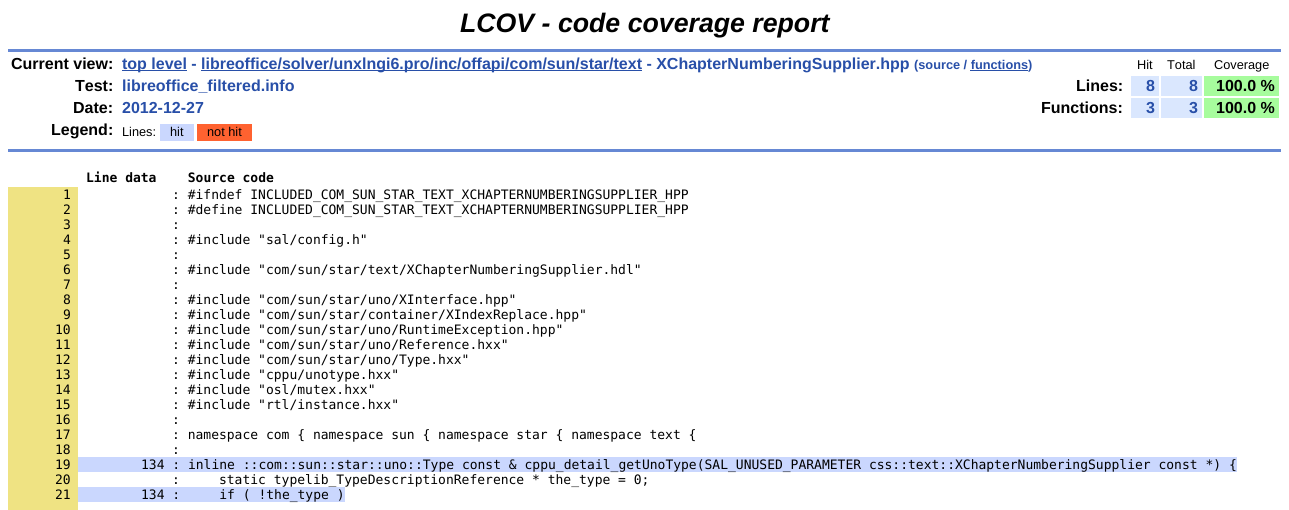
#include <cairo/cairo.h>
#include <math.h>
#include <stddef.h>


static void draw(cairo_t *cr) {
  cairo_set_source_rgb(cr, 1, 1, 1);
  cairo_paint(cr);
  cairo_set_source_rgb(cr, 102 / 255.0, 136 / 255.0, 212 / 255.0);
  cairo_rectangle(cr, 8, 49, 1273, 3);
  cairo_fill(cr);
  cairo_set_source_rgb(cr, 40 / 255.0, 79 / 255.0, 168 / 255.0);
  cairo_rectangle(cr, 122, 70, 65, 1);
  cairo_fill(cr);
  cairo_rectangle(cr, 201, 70, 441, 1);
  cairo_fill(cr);
  cairo_rectangle(cr, 970, 70, 58, 1);
  cairo_fill(cr);
  cairo_set_source_rgb(cr, 218 / 255.0, 231 / 255.0, 254 / 255.0);
  cairo_rectangle(cr, 1131, 76, 28, 20);
  cairo_fill(cr);
  cairo_rectangle(cr, 1161, 76, 41, 20);
  cairo_fill(cr);
  cairo_set_source_rgb(cr, 167 / 255.0, 252 / 255.0, 157 / 255.0);
  cairo_rectangle(cr, 1204, 76, 75, 20);
  cairo_fill(cr);
  cairo_set_source_rgb(cr, 218 / 255.0, 231 / 255.0, 254 / 255.0);
  cairo_rectangle(cr, 1131, 98, 28, 20);
  cairo_fill(cr);
  cairo_rectangle(cr, 1161, 98, 41, 20);
  cairo_fill(cr);
  cairo_set_source_rgb(cr, 167 / 255.0, 252 / 255.0, 157 / 255.0);
  cairo_rectangle(cr, 1204, 98, 75, 20);
  cairo_fill(cr);
  cairo_set_source_rgb(cr, 202 / 255.0, 215 / 255.0, 254 / 255.0);
  cairo_rectangle(cr, 160, 124, 34, 17);
  cairo_fill(cr);
  cairo_set_source_rgb(cr, 1, 98 / 255.0, 48 / 255.0);
  cairo_rectangle(cr, 197, 124, 55, 17);
  cairo_fill(cr);
  cairo_set_source_rgb(cr, 102 / 255.0, 136 / 255.0, 212 / 255.0);
  cairo_rectangle(cr, 8, 149, 1273, 3);
  cairo_fill(cr);
  cairo_set_source_rgb(cr, 239 / 255.0, 227 / 255.0, 131 / 255.0);
  cairo_rectangle(cr, 8, 187, 70, 323);
  cairo_fill(cr);
  cairo_set_source_rgb(cr, 202 / 255.0, 215 / 255.0, 254 / 255.0);
  cairo_rectangle(cr, 78, 457, 1159, 15);
  cairo_fill(cr);
  cairo_select_font_face(cr, "Liberation Sans", CAIRO_FONT_SLANT_ITALIC, CAIRO_FONT_WEIGHT_BOLD);
  cairo_set_font_size(cr, 26.7);
  cairo_set_source_rgb(cr, 0, 0, 0);
  cairo_move_to(cr, 460, 32);
  cairo_show_text(cr, "LCOV - code coverage report");
  cairo_select_font_face(cr, "Liberation Sans", CAIRO_FONT_SLANT_NORMAL, CAIRO_FONT_WEIGHT_BOLD);
  cairo_set_font_size(cr, 16);
  cairo_move_to(cr, 11, 69);
  cairo_show_text(cr, "Current view:");
  cairo_set_source_rgb(cr, 40 / 255.0, 79 / 255.0, 168 / 255.0);
  cairo_move_to(cr, 122, 69);
  cairo_show_text(cr, "top level -");
  cairo_move_to(cr, 201, 69);
  cairo_show_text(cr, "libreoffice/solver/unxlngi6.pro/inc/offapi/com/sun/star/text - XChapterNumberingSupplier.hpp");
  cairo_set_font_size(cr, 12.75);
  cairo_move_to(cr, 914, 69);
  cairo_show_text(cr, "(source / functions)");
  cairo_select_font_face(cr, "Liberation Sans", CAIRO_FONT_SLANT_NORMAL, CAIRO_FONT_WEIGHT_NORMAL);
  cairo_set_source_rgb(cr, 0, 0, 0);
  cairo_move_to(cr, 1137, 69);
  cairo_show_text(cr, "Hit");
  cairo_move_to(cr, 1167, 69);
  cairo_show_text(cr, "Total");
  cairo_move_to(cr, 1214, 69);
  cairo_show_text(cr, "Coverage");
  cairo_select_font_face(cr, "Liberation Sans", CAIRO_FONT_SLANT_NORMAL, CAIRO_FONT_WEIGHT_BOLD);
  cairo_set_font_size(cr, 16);
  cairo_move_to(cr, 75, 91);
  cairo_show_text(cr, "Test:");
  cairo_set_source_rgb(cr, 40 / 255.0, 79 / 255.0, 168 / 255.0);
  cairo_move_to(cr, 122, 91);
  cairo_show_text(cr, "libreoffice_filtered.info");
  cairo_set_source_rgb(cr, 0, 0, 0);
  cairo_move_to(cr, 1076, 91);
  cairo_show_text(cr, "Lines:");
  cairo_set_source_rgb(cr, 40 / 255.0, 79 / 255.0, 168 / 255.0);
  cairo_move_to(cr, 1146, 91);
  cairo_show_text(cr, "8");
  cairo_move_to(cr, 1189, 91);
  cairo_show_text(cr, "8");
  cairo_set_source_rgb(cr, 0, 0, 0);
  cairo_move_to(cr, 1216, 91);
  cairo_show_text(cr, "100.0 %");
  cairo_move_to(cr, 73, 113);
  cairo_show_text(cr, "Date:");
  cairo_set_source_rgb(cr, 40 / 255.0, 79 / 255.0, 168 / 255.0);
  cairo_move_to(cr, 122, 113);
  cairo_show_text(cr, "2012-12-27");
  cairo_set_source_rgb(cr, 0, 0, 0);
  cairo_move_to(cr, 1041, 113);
  cairo_show_text(cr, "Functions:");
  cairo_set_source_rgb(cr, 40 / 255.0, 79 / 255.0, 168 / 255.0);
  cairo_move_to(cr, 1146, 113);
  cairo_show_text(cr, "3");
  cairo_move_to(cr, 1189, 113);
  cairo_show_text(cr, "3");
  cairo_set_source_rgb(cr, 0, 0, 0);
  cairo_move_to(cr, 1216, 113);
  cairo_show_text(cr, "100.0 %");
  cairo_move_to(cr, 51, 135);
  cairo_show_text(cr, "Legend:");
  cairo_select_font_face(cr, "Liberation Sans", CAIRO_FONT_SLANT_NORMAL, CAIRO_FONT_WEIGHT_NORMAL);
  cairo_set_font_size(cr, 12.75);
  cairo_move_to(cr, 122, 136);
  cairo_show_text(cr, "Lines:");
  cairo_move_to(cr, 170, 136);
  cairo_show_text(cr, "hit");
  cairo_move_to(cr, 207, 136);
  cairo_show_text(cr, "not hit");
  cairo_select_font_face(cr, "DejaVu Sans Mono", CAIRO_FONT_SLANT_NORMAL, CAIRO_FONT_WEIGHT_BOLD);
  cairo_set_font_size(cr, 13);
  cairo_move_to(cr, 86, 182);
  cairo_show_text(cr, "Line data    Source code");
  cairo_select_font_face(cr, "DejaVu Sans Mono", CAIRO_FONT_SLANT_NORMAL, CAIRO_FONT_WEIGHT_NORMAL);
  cairo_move_to(cr, 63, 199);
  cairo_show_text(cr, "1");
  cairo_move_to(cr, 172, 199);
  cairo_show_text(cr, ": #ifndef INCLUDED_COM_SUN_STAR_TEXT_XCHAPTERNUMBERINGSUPPLIER_HPP");
  cairo_move_to(cr, 63, 214);
  cairo_show_text(cr, "2");
  cairo_move_to(cr, 172, 214);
  cairo_show_text(cr, ": #define INCLUDED_COM_SUN_STAR_TEXT_XCHAPTERNUMBERINGSUPPLIER_HPP");
  cairo_move_to(cr, 63, 229);
  cairo_show_text(cr, "3");
  cairo_move_to(cr, 172, 229);
  cairo_show_text(cr, ":");
  cairo_move_to(cr, 63, 244);
  cairo_show_text(cr, "4");
  cairo_move_to(cr, 172, 244);
  cairo_show_text(cr, ": #include \"sal/config.h\"");
  cairo_move_to(cr, 63, 259);
  cairo_show_text(cr, "5");
  cairo_move_to(cr, 172, 259);
  cairo_show_text(cr, ":");
  cairo_move_to(cr, 63, 274);
  cairo_show_text(cr, "6");
  cairo_move_to(cr, 172, 274);
  cairo_show_text(cr, ": #include \"com/sun/star/text/XChapterNumberingSupplier.hdl\"");
  cairo_move_to(cr, 63, 289);
  cairo_show_text(cr, "7");
  cairo_move_to(cr, 172, 289);
  cairo_show_text(cr, ":");
  cairo_move_to(cr, 63, 304);
  cairo_show_text(cr, "8");
  cairo_move_to(cr, 172, 304);
  cairo_show_text(cr, ": #include \"com/sun/star/uno/XInterface.hpp\"");
  cairo_move_to(cr, 63, 319);
  cairo_show_text(cr, "9");
  cairo_move_to(cr, 172, 319);
  cairo_show_text(cr, ": #include \"com/sun/star/container/XIndexReplace.hpp\"");
  cairo_move_to(cr, 55, 334);
  cairo_show_text(cr, "10");
  cairo_move_to(cr, 172, 334);
  cairo_show_text(cr, ": #include \"com/sun/star/uno/RuntimeException.hpp\"");
  cairo_move_to(cr, 55, 349);
  cairo_show_text(cr, "11");
  cairo_move_to(cr, 172, 349);
  cairo_show_text(cr, ": #include \"com/sun/star/uno/Reference.hxx\"");
  cairo_move_to(cr, 55, 364);
  cairo_show_text(cr, "12");
  cairo_move_to(cr, 172, 364);
  cairo_show_text(cr, ": #include \"com/sun/star/uno/Type.hxx\"");
  cairo_move_to(cr, 55, 379);
  cairo_show_text(cr, "13");
  cairo_move_to(cr, 172, 379);
  cairo_show_text(cr, ": #include \"cppu/unotype.hxx\"");
  cairo_move_to(cr, 55, 394);
  cairo_show_text(cr, "14");
  cairo_move_to(cr, 172, 394);
  cairo_show_text(cr, ": #include \"osl/mutex.hxx\"");
  cairo_move_to(cr, 55, 409);
  cairo_show_text(cr, "15");
  cairo_move_to(cr, 172, 409);
  cairo_show_text(cr, ": #include \"rtl/instance.hxx\"");
  cairo_move_to(cr, 55, 424);
  cairo_show_text(cr, "16");
  cairo_move_to(cr, 172, 424);
  cairo_show_text(cr, ":");
  cairo_move_to(cr, 55, 439);
  cairo_show_text(cr, "17");
  cairo_move_to(cr, 172, 439);
  cairo_show_text(cr, ": namespace com { namespace sun { namespace star { namespace text {");
  cairo_move_to(cr, 55, 454);
  cairo_show_text(cr, "18");
  cairo_move_to(cr, 172, 454);
  cairo_show_text(cr, ":");
  cairo_move_to(cr, 55, 469);
  cairo_show_text(cr, "19");
  cairo_move_to(cr, 141, 469);
  cairo_show_text(cr, "134 : inline ::com::sun::star::uno::Type const & cppu_detail_getUnoType(SAL_UNUSED_PARAMETER css::text::XChapterNumberingSupplier const *) {");
  cairo_move_to(cr, 55, 484);
  cairo_show_text(cr, "20");
  cairo_move_to(cr, 172, 484);
  cairo_show_text(cr, ":     static typelib_TypeDescriptionReference * the_type = 0;");
  cairo_move_to(cr, 55, 499);
  cairo_show_text(cr, "21");
  cairo_set_source_rgb(cr, 202 / 255.0, 215 / 255.0, 254 / 255.0);
  cairo_rectangle(cr, 78, 487, 267, 15);
  cairo_fill(cr);
  cairo_set_source_rgb(cr, 0, 0, 0);
  cairo_move_to(cr, 141, 499);
  cairo_show_text(cr, "134 :     if ( !the_type )");
}

int main(void) {
  cairo_surface_t *surface = cairo_image_surface_create(CAIRO_FORMAT_RGB24, 1289, 510);
  cairo_t *cr = cairo_create(surface);
  cairo_font_options_t *options = cairo_font_options_create();
  cairo_font_options_set_hint_metrics(options, CAIRO_HINT_METRICS_OFF);
  cairo_font_options_set_hint_style(options, CAIRO_HINT_STYLE_NONE);
  cairo_set_font_options(cr, options);
  cairo_set_miter_limit(cr, 4);
  draw(cr);
  cairo_surface_write_to_png(surface, "out.png");
  cairo_font_options_destroy(options);
  cairo_destroy(cr);
  cairo_surface_destroy(surface);
  return 0;
}
